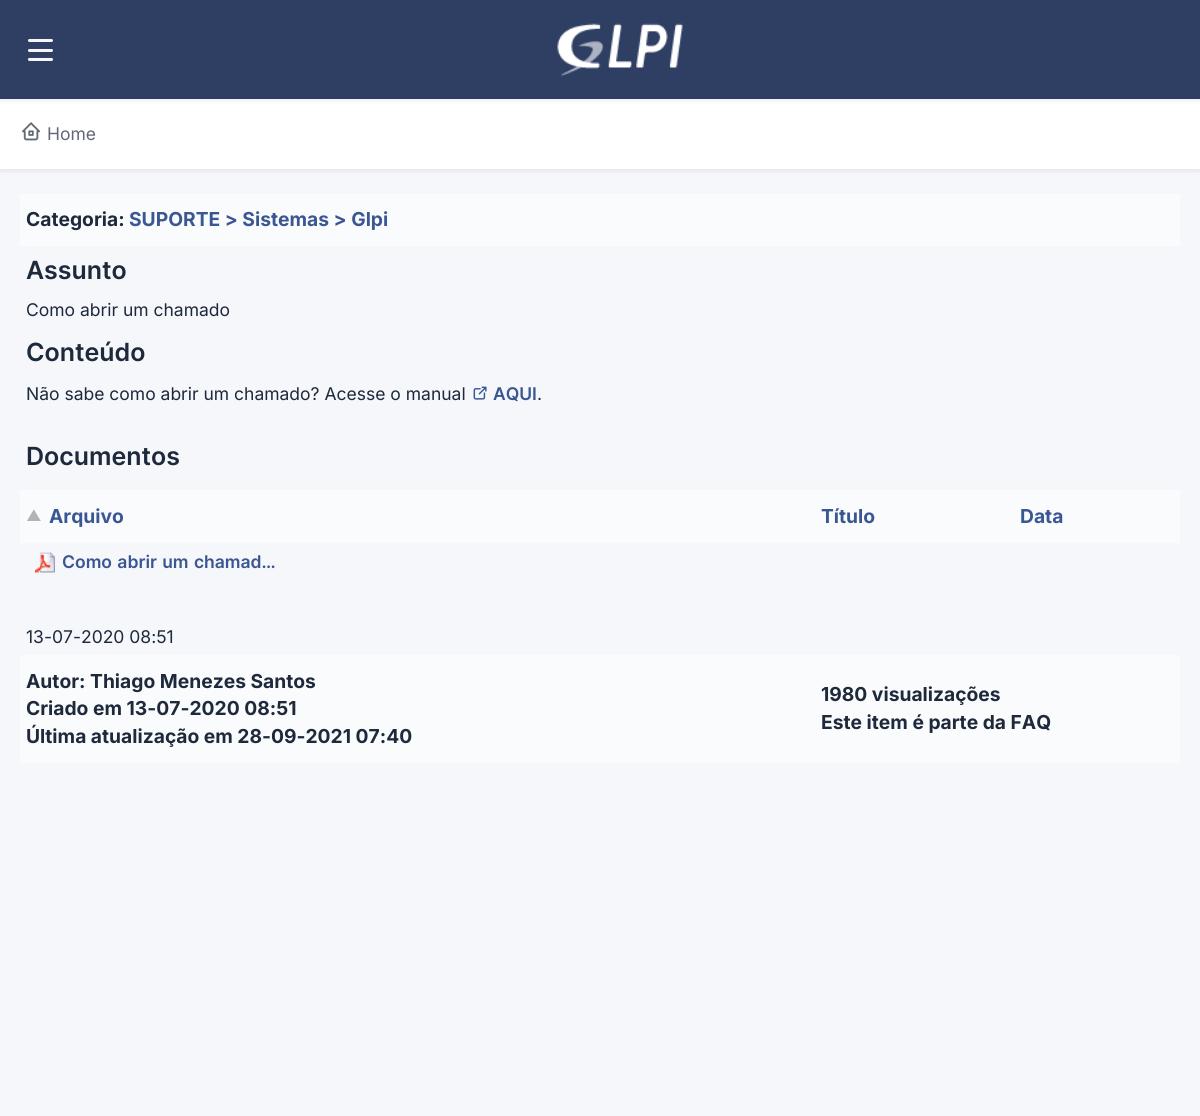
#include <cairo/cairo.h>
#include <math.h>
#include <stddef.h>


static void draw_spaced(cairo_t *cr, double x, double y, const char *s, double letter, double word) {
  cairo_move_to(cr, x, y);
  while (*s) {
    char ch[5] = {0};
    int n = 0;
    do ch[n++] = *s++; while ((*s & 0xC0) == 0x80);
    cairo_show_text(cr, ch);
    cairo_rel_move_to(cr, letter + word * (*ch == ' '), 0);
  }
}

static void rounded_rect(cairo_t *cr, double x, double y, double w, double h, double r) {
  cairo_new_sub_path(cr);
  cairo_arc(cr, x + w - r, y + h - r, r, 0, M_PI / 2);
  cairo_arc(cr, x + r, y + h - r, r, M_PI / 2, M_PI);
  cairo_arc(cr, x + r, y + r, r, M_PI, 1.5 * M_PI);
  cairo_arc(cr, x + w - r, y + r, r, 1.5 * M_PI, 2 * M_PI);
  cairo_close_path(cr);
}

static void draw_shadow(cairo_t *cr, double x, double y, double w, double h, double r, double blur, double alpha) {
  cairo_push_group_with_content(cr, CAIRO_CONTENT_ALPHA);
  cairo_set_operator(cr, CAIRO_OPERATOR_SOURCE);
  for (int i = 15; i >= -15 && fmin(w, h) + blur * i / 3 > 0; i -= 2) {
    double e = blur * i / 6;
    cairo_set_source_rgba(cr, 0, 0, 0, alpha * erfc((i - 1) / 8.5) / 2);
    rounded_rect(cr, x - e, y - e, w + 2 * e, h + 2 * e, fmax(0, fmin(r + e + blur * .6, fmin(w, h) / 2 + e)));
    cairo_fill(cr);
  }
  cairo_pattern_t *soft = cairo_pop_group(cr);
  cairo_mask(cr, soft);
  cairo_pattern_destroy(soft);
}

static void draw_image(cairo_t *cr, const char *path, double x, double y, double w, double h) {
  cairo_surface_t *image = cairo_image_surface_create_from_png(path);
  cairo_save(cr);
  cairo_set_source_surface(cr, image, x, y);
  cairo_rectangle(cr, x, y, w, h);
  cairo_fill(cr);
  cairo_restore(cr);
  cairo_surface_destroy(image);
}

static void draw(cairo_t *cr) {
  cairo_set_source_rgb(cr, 245 / 255.0, 247 / 255.0, 251 / 255.0);
  cairo_paint(cr);
  cairo_set_source_rgb(cr, 0, 0, 0);
  draw_shadow(cr, 0, 101, 1200, 70, 0, 2.5, 0.07);
  cairo_set_source_rgb(cr, 1, 1, 1);
  cairo_rectangle(cr, 0, 99, 1200, 70);
  cairo_fill(cr);
  cairo_set_source_rgb(cr, 0, 0, 0);
  draw_shadow(cr, 0, 3, 1200, 98, 0, 2.5, 0.07);
  cairo_set_source_rgb(cr, 47 / 255.0, 63 / 255.0, 100 / 255.0);
  cairo_rectangle(cr, 0, 0, 1200, 99);
  cairo_fill(cr);
  cairo_set_source_rgb(cr, 244 / 255.0, 246 / 255.0, 250 / 255.0);
  rounded_rect(cr, 28, 49, 25, 3, 1.5);
  cairo_fill(cr);
  draw_image(cr, "images/1.png", 28, 49, 1, 2);
  rounded_rect(cr, 28, 39, 25, 3, 1.5);
  cairo_fill(cr);
  draw_image(cr, "images/1.png", 28, 39, 1, 2);
  rounded_rect(cr, 28, 58, 25, 3, 1.5);
  cairo_fill(cr);
  draw_image(cr, "images/2.png", 27, 57, 26, 2);
  draw_image(cr, "images/3.png", 557, 23, 126, 54);
  draw_image(cr, "images/4.png", 22, 122, 18, 19);
  cairo_set_source_rgb(cr, 250 / 255.0, 251 / 255.0, 252 / 255.0);
  cairo_rectangle(cr, 20, 194, 1160, 52);
  cairo_fill(cr);
  draw_image(cr, "images/5.png", 473, 386, 14, 14);
  cairo_rectangle(cr, 20, 490, 1160, 53);
  cairo_fill(cr);
  draw_image(cr, "images/6.png", 35, 552, 20, 21);
  cairo_rectangle(cr, 20, 655, 1160, 108);
  cairo_fill(cr);
  cairo_select_font_face(cr, "Inter", CAIRO_FONT_SLANT_NORMAL, CAIRO_FONT_WEIGHT_NORMAL);
  cairo_set_font_size(cr, 17.5);
  cairo_set_source_rgb(cr, 98 / 255.0, 105 / 255.0, 118 / 255.0);
  cairo_move_to(cr, 47, 140);
  cairo_show_text(cr, "Home");
  cairo_select_font_face(cr, "Inter", CAIRO_FONT_SLANT_NORMAL, CAIRO_FONT_WEIGHT_BOLD);
  cairo_set_font_size(cr, 19.25);
  cairo_set_source_rgb(cr, 30 / 255.0, 41 / 255.0, 59 / 255.0);
  cairo_move_to(cr, 26, 226);
  cairo_show_text(cr, "Categoria:");
  cairo_set_source_rgb(cr, 58 / 255.0, 86 / 255.0, 147 / 255.0);
  cairo_move_to(cr, 129, 226);
  cairo_show_text(cr, "SUPORTE > Sistemas > Glpi");
  cairo_select_font_face(cr, "Inter SemiBold", CAIRO_FONT_SLANT_NORMAL, CAIRO_FONT_WEIGHT_NORMAL);
  cairo_set_font_size(cr, 25);
  cairo_set_source_rgb(cr, 30 / 255.0, 41 / 255.0, 59 / 255.0);
  cairo_move_to(cr, 26, 279);
  cairo_show_text(cr, "Assunto");
  cairo_select_font_face(cr, "Inter", CAIRO_FONT_SLANT_NORMAL, CAIRO_FONT_WEIGHT_NORMAL);
  cairo_set_font_size(cr, 17.5);
  cairo_move_to(cr, 26, 316);
  cairo_show_text(cr, "Como abrir um chamado");
  cairo_select_font_face(cr, "Inter SemiBold", CAIRO_FONT_SLANT_NORMAL, CAIRO_FONT_WEIGHT_NORMAL);
  cairo_set_font_size(cr, 25);
  cairo_move_to(cr, 26, 361);
  cairo_show_text(cr, "Conteúdo");
  cairo_select_font_face(cr, "Inter", CAIRO_FONT_SLANT_NORMAL, CAIRO_FONT_WEIGHT_NORMAL);
  cairo_set_font_size(cr, 17.5);
  cairo_move_to(cr, 26, 400);
  cairo_show_text(cr, "Não sabe como abrir um chamado? Acesse o manual");
  cairo_select_font_face(cr, "Inter SemiBold", CAIRO_FONT_SLANT_NORMAL, CAIRO_FONT_WEIGHT_NORMAL);
  cairo_set_source_rgb(cr, 58 / 255.0, 86 / 255.0, 147 / 255.0);
  cairo_move_to(cr, 493, 400);
  cairo_show_text(cr, "AQUI");
  cairo_select_font_face(cr, "Inter", CAIRO_FONT_SLANT_NORMAL, CAIRO_FONT_WEIGHT_NORMAL);
  cairo_set_source_rgb(cr, 30 / 255.0, 41 / 255.0, 59 / 255.0);
  cairo_move_to(cr, 537, 400);
  cairo_show_text(cr, ".");
  cairo_select_font_face(cr, "Inter SemiBold", CAIRO_FONT_SLANT_NORMAL, CAIRO_FONT_WEIGHT_NORMAL);
  cairo_set_font_size(cr, 25);
  cairo_move_to(cr, 26, 465);
  cairo_show_text(cr, "Documentos");
  cairo_select_font_face(cr, "Inter", CAIRO_FONT_SLANT_NORMAL, CAIRO_FONT_WEIGHT_BOLD);
  cairo_set_font_size(cr, 15);
  cairo_set_source_rgb(cr, 179 / 255.0, 179 / 255.0, 179 / 255.0);
  cairo_move_to(cr, 26, 521);
  cairo_show_text(cr, "▲");
  cairo_set_font_size(cr, 19.25);
  cairo_set_source_rgb(cr, 58 / 255.0, 86 / 255.0, 147 / 255.0);
  cairo_move_to(cr, 49, 523);
  cairo_show_text(cr, "Arquivo");
  cairo_move_to(cr, 821, 523);
  cairo_show_text(cr, "Título");
  cairo_move_to(cr, 1020, 523);
  cairo_show_text(cr, "Data");
  cairo_select_font_face(cr, "Inter SemiBold", CAIRO_FONT_SLANT_NORMAL, CAIRO_FONT_WEIGHT_NORMAL);
  cairo_set_font_size(cr, 17.5);
  draw_spaced(cr, 62, 568, "Como abrir um chamad…", 0, 1);
  cairo_select_font_face(cr, "Inter", CAIRO_FONT_SLANT_NORMAL, CAIRO_FONT_WEIGHT_NORMAL);
  cairo_set_source_rgb(cr, 30 / 255.0, 41 / 255.0, 59 / 255.0);
  cairo_move_to(cr, 26, 643);
  cairo_show_text(cr, "13-07-2020 08:51");
  cairo_select_font_face(cr, "Inter", CAIRO_FONT_SLANT_NORMAL, CAIRO_FONT_WEIGHT_BOLD);
  cairo_set_font_size(cr, 19.25);
  cairo_move_to(cr, 26, 688);
  cairo_show_text(cr, "Autor: Thiago Menezes Santos");
  cairo_move_to(cr, 26, 715);
  cairo_show_text(cr, "Criado em 13-07-2020 08:51");
  cairo_move_to(cr, 26, 743);
  cairo_show_text(cr, "Última atualização em 28-09-2021 07:40");
  cairo_move_to(cr, 821, 701);
  cairo_show_text(cr, "1980 visualizações");
  cairo_move_to(cr, 821, 729);
  cairo_show_text(cr, "Este item é parte da FAQ");
}

int main(void) {
  cairo_surface_t *surface = cairo_image_surface_create(CAIRO_FORMAT_RGB24, 1200, 1116);
  cairo_t *cr = cairo_create(surface);
  cairo_font_options_t *options = cairo_font_options_create();
  cairo_font_options_set_hint_metrics(options, CAIRO_HINT_METRICS_OFF);
  cairo_font_options_set_hint_style(options, CAIRO_HINT_STYLE_NONE);
  cairo_set_font_options(cr, options);
  cairo_set_miter_limit(cr, 4);
  draw(cr);
  cairo_surface_write_to_png(surface, "out.png");
  cairo_font_options_destroy(options);
  cairo_destroy(cr);
  cairo_surface_destroy(surface);
  return 0;
}
